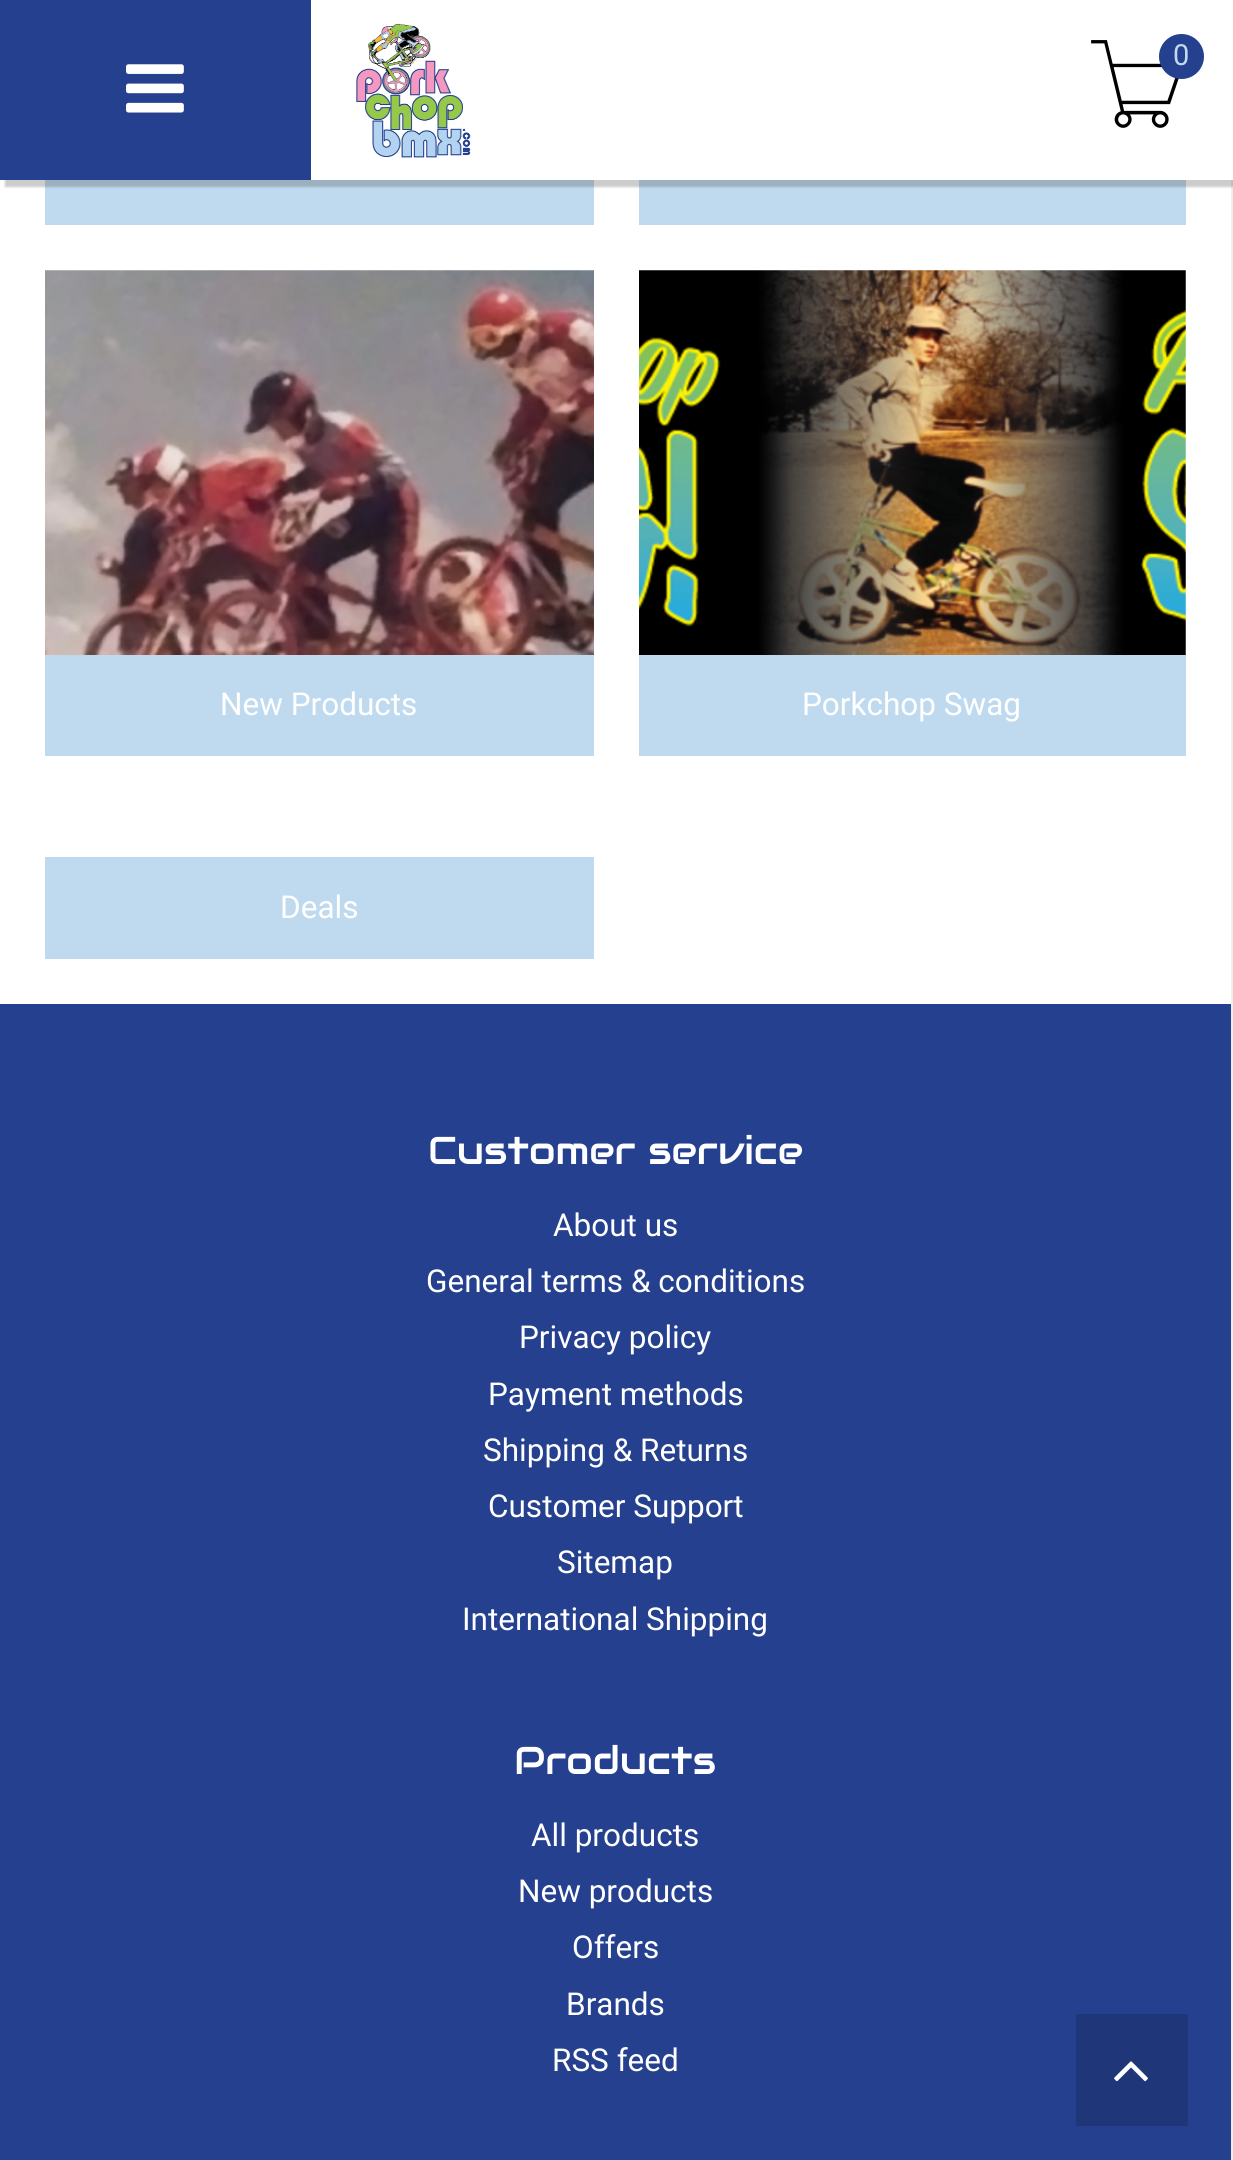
#include <cairo/cairo.h>
#include <math.h>
#include <stddef.h>


static void rounded_rect(cairo_t *cr, double x, double y, double w, double h, double r) {
  cairo_new_sub_path(cr);
  cairo_arc(cr, x + w - r, y + h - r, r, 0, M_PI / 2);
  cairo_arc(cr, x + r, y + h - r, r, M_PI / 2, M_PI);
  cairo_arc(cr, x + r, y + r, r, M_PI, 1.5 * M_PI);
  cairo_arc(cr, x + w - r, y + r, r, 1.5 * M_PI, 2 * M_PI);
  cairo_close_path(cr);
}

static void draw_shadow(cairo_t *cr, double x, double y, double w, double h, double r, double blur, double alpha) {
  cairo_push_group_with_content(cr, CAIRO_CONTENT_ALPHA);
  cairo_set_operator(cr, CAIRO_OPERATOR_SOURCE);
  for (int i = 15; i >= -15 && fmin(w, h) + blur * i / 3 > 0; i -= 2) {
    double e = blur * i / 6;
    cairo_set_source_rgba(cr, 0, 0, 0, alpha * erfc((i - 1) / 8.5) / 2);
    rounded_rect(cr, x - e, y - e, w + 2 * e, h + 2 * e, fmax(0, fmin(r + e + blur * .6, fmin(w, h) / 2 + e)));
    cairo_fill(cr);
  }
  cairo_pattern_t *soft = cairo_pop_group(cr);
  cairo_mask(cr, soft);
  cairo_pattern_destroy(soft);
}

static void draw_image(cairo_t *cr, const char *path, double x, double y, double w, double h) {
  cairo_surface_t *image = cairo_image_surface_create_from_png(path);
  cairo_save(cr);
  cairo_set_source_surface(cr, image, x, y);
  cairo_rectangle(cr, x, y, w, h);
  cairo_fill(cr);
  cairo_restore(cr);
  cairo_surface_destroy(image);
}

static void draw(cairo_t *cr) {
  cairo_set_source_rgb(cr, 1, 1, 1);
  cairo_paint(cr);
  cairo_set_source_rgb(cr, 238 / 255.0, 238 / 255.0, 238 / 255.0);
  cairo_rectangle(cr, 1231, 180, 2, 1980);
  cairo_fill(cr);
  cairo_set_source_rgb(cr, 191 / 255.0, 218 / 255.0, 239 / 255.0);
  cairo_rectangle(cr, 45, 180, 549, 45);
  cairo_fill(cr);
  cairo_rectangle(cr, 639, 180, 547, 45);
  cairo_fill(cr);
  cairo_set_source_rgb(cr, 50 / 255.0, 50 / 255.0, 50 / 255.0);
  draw_shadow(cr, 5, 2, 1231, 185, 0, 1, 0.25);
  cairo_set_source_rgb(cr, 1, 1, 1);
  cairo_rectangle(cr, 311, 0, 922, 180);
  cairo_fill(cr);
  cairo_set_source_rgb(cr, 37 / 255.0, 64 / 255.0, 143 / 255.0);
  cairo_rectangle(cr, 0, 0, 311, 180);
  cairo_fill(cr);
  draw_image(cr, "images/1.png", 126, 64, 58, 49);
  draw_image(cr, "images/2.png", 356, 23, 115, 135);
  draw_image(cr, "images/3.png", 1091, 40, 88, 88);
  cairo_arc(cr, 1181.5, 56.5, 22.5, 0, 2 * M_PI);
  cairo_fill(cr);
  draw_image(cr, "images/4.png", 45, 270, 549, 385);
  cairo_set_source_rgb(cr, 191 / 255.0, 218 / 255.0, 239 / 255.0);
  cairo_rectangle(cr, 45, 655, 549, 101);
  cairo_fill(cr);
  draw_image(cr, "images/5.png", 639, 270, 547, 385);
  cairo_rectangle(cr, 639, 655, 547, 101);
  cairo_fill(cr);
  cairo_rectangle(cr, 45, 857, 549, 102);
  cairo_fill(cr);
  cairo_set_source_rgb(cr, 37 / 255.0, 64 / 255.0, 143 / 255.0);
  cairo_rectangle(cr, 0, 1004, 1231, 1156);
  cairo_fill(cr);
  cairo_set_source_rgb(cr, 31 / 255.0, 54 / 255.0, 121 / 255.0);
  cairo_rectangle(cr, 1076, 2014, 112, 112);
  cairo_fill(cr);
  draw_image(cr, "images/6.png", 1114, 2061, 34, 21);
  cairo_select_font_face(cr, "Roboto", CAIRO_FONT_SLANT_NORMAL, CAIRO_FONT_WEIGHT_NORMAL);
  cairo_set_font_size(cr, 29);
  cairo_set_source_rgb(cr, 191 / 255.0, 218 / 255.0, 239 / 255.0);
  cairo_move_to(cr, 1173, 65);
  cairo_show_text(cr, "0");
  cairo_set_font_size(cr, 31.5);
  cairo_set_source_rgb(cr, 1, 1, 1);
  cairo_move_to(cr, 220, 715);
  cairo_show_text(cr, "New Products");
  cairo_move_to(cr, 802, 715);
  cairo_show_text(cr, "Porkchop Swag");
  cairo_move_to(cr, 280, 918);
  cairo_show_text(cr, "Deals");
  cairo_select_font_face(cr, "Audiowide", CAIRO_FONT_SLANT_NORMAL, CAIRO_FONT_WEIGHT_NORMAL);
  cairo_set_font_size(cr, 38.75);
  cairo_move_to(cr, 428, 1164);
  cairo_show_text(cr, "Customer service");
  cairo_select_font_face(cr, "Roboto", CAIRO_FONT_SLANT_NORMAL, CAIRO_FONT_WEIGHT_NORMAL);
  cairo_set_font_size(cr, 31.5);
  cairo_move_to(cr, 553, 1236);
  cairo_show_text(cr, "About us");
  cairo_move_to(cr, 426, 1292);
  cairo_show_text(cr, "General terms & conditions");
  cairo_move_to(cr, 519, 1348);
  cairo_show_text(cr, "Privacy policy");
  cairo_move_to(cr, 488, 1405);
  cairo_show_text(cr, "Payment methods");
  cairo_move_to(cr, 483, 1461);
  cairo_show_text(cr, "Shipping & Returns");
  cairo_move_to(cr, 488, 1517);
  cairo_show_text(cr, "Customer Support");
  cairo_move_to(cr, 557, 1573);
  cairo_show_text(cr, "Sitemap");
  cairo_move_to(cr, 462, 1630);
  cairo_show_text(cr, "International Shipping");
  cairo_select_font_face(cr, "Audiowide", CAIRO_FONT_SLANT_NORMAL, CAIRO_FONT_WEIGHT_NORMAL);
  cairo_set_font_size(cr, 38.75);
  cairo_move_to(cr, 514, 1774);
  cairo_show_text(cr, "Products");
  cairo_select_font_face(cr, "Roboto", CAIRO_FONT_SLANT_NORMAL, CAIRO_FONT_WEIGHT_NORMAL);
  cairo_set_font_size(cr, 31.5);
  cairo_move_to(cr, 531, 1846);
  cairo_show_text(cr, "All products");
  cairo_move_to(cr, 518, 1902);
  cairo_show_text(cr, "New products");
  cairo_move_to(cr, 572, 1958);
  cairo_show_text(cr, "Offers");
  cairo_move_to(cr, 566, 2015);
  cairo_show_text(cr, "Brands");
  cairo_move_to(cr, 552, 2071);
  cairo_show_text(cr, "RSS feed");
}

int main(void) {
  cairo_surface_t *surface = cairo_image_surface_create(CAIRO_FORMAT_RGB24, 1233, 2160);
  cairo_t *cr = cairo_create(surface);
  cairo_font_options_t *options = cairo_font_options_create();
  cairo_font_options_set_hint_metrics(options, CAIRO_HINT_METRICS_OFF);
  cairo_font_options_set_hint_style(options, CAIRO_HINT_STYLE_NONE);
  cairo_set_font_options(cr, options);
  cairo_set_miter_limit(cr, 4);
  draw(cr);
  cairo_surface_write_to_png(surface, "out.png");
  cairo_font_options_destroy(options);
  cairo_destroy(cr);
  cairo_surface_destroy(surface);
  return 0;
}
